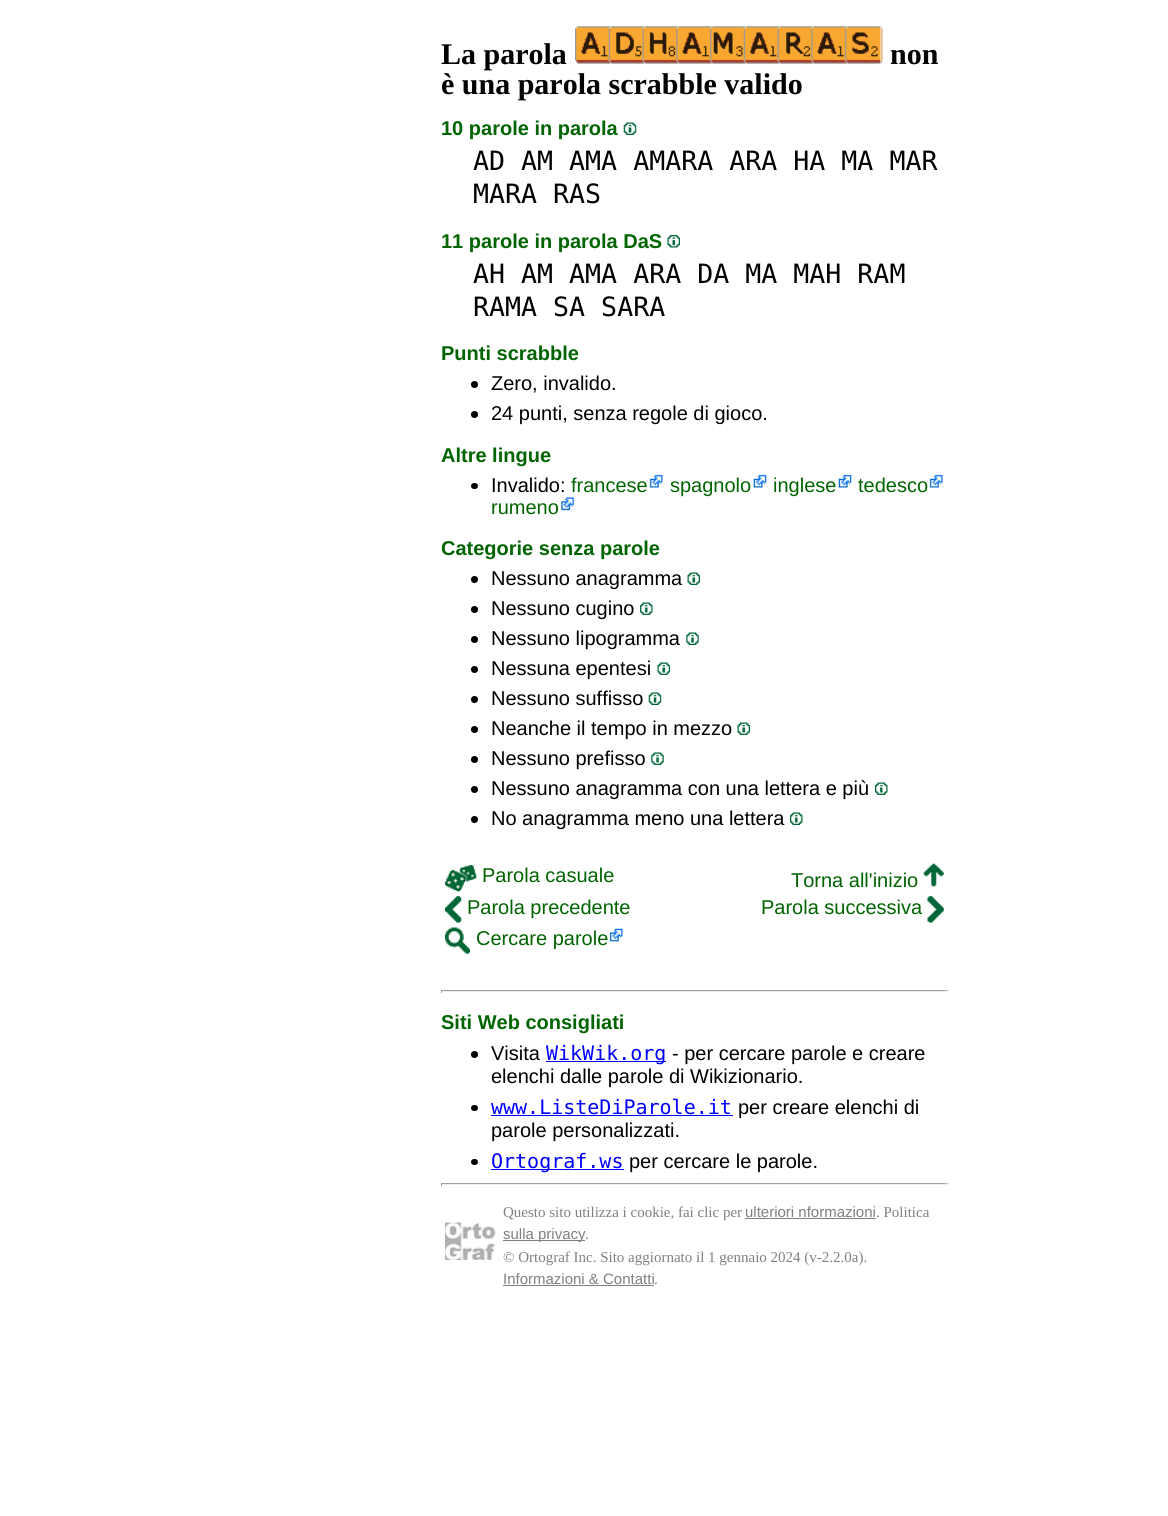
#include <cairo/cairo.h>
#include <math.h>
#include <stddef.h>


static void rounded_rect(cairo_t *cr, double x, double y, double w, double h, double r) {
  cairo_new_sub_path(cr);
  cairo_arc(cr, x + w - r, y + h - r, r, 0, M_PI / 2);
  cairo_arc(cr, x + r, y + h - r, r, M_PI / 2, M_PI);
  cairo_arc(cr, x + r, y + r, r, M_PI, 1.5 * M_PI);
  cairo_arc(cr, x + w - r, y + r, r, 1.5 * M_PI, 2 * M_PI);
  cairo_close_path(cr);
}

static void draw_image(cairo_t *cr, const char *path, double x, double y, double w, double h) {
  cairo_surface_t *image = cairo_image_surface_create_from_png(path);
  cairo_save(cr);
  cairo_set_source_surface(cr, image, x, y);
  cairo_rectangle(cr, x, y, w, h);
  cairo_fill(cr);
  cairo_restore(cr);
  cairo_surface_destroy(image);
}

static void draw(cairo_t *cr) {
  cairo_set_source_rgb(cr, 1, 1, 1);
  cairo_paint(cr);
  draw_image(cr, "images/1.png", 575, 26, 308, 38);
  draw_image(cr, "images/2.png", 623, 122, 14, 13);
  draw_image(cr, "images/3.png", 667, 235, 13, 13);
  cairo_set_source_rgb(cr, 0, 0, 0);
  cairo_arc(cr, 474.5, 384.5, 3.5, 0, 2 * M_PI);
  cairo_fill(cr);
  cairo_arc(cr, 474.5, 414.5, 3.5, 0, 2 * M_PI);
  cairo_fill(cr);
  rounded_rect(cr, 471, 483, 7, 6, 3);
  cairo_fill(cr);
  draw_image(cr, "images/4.png", 649, 474, 14, 14);
  draw_image(cr, "images/5.png", 753, 474, 14, 14);
  draw_image(cr, "images/6.png", 838, 474, 14, 14);
  draw_image(cr, "images/7.png", 929, 474, 14, 14);
  draw_image(cr, "images/8.png", 561, 497, 13, 14);
  cairo_arc(cr, 474.5, 579.5, 3.5, 0, 2 * M_PI);
  cairo_fill(cr);
  draw_image(cr, "images/9.png", 687, 572, 13, 13);
  cairo_arc(cr, 474.5, 609.5, 3.5, 0, 2 * M_PI);
  cairo_fill(cr);
  draw_image(cr, "images/10.png", 640, 602, 13, 13);
  cairo_arc(cr, 474.5, 639.5, 3.5, 0, 2 * M_PI);
  cairo_fill(cr);
  draw_image(cr, "images/11.png", 686, 632, 13, 13);
  cairo_arc(cr, 474.5, 669.5, 3.5, 0, 2 * M_PI);
  cairo_fill(cr);
  draw_image(cr, "images/9.png", 657, 662, 13, 13);
  cairo_arc(cr, 474.5, 699.5, 3.5, 0, 2 * M_PI);
  cairo_fill(cr);
  draw_image(cr, "images/2.png", 648, 692, 14, 13);
  cairo_arc(cr, 474.5, 729.5, 3.5, 0, 2 * M_PI);
  cairo_fill(cr);
  draw_image(cr, "images/9.png", 737, 722, 13, 13);
  cairo_arc(cr, 474.5, 759.5, 3.5, 0, 2 * M_PI);
  cairo_fill(cr);
  draw_image(cr, "images/11.png", 651, 752, 13, 13);
  cairo_arc(cr, 474.5, 789.5, 3.5, 0, 2 * M_PI);
  cairo_fill(cr);
  draw_image(cr, "images/10.png", 875, 782, 13, 13);
  cairo_arc(cr, 474.5, 819.5, 3.5, 0, 2 * M_PI);
  cairo_fill(cr);
  draw_image(cr, "images/10.png", 790, 812, 13, 13);
  draw_image(cr, "images/12.png", 445, 865, 32, 27);
  draw_image(cr, "images/13.png", 923, 863, 21, 24);
  draw_image(cr, "images/14.png", 445, 896, 17, 27);
  draw_image(cr, "images/15.png", 927, 896, 17, 27);
  draw_image(cr, "images/16.png", 609, 928, 14, 14);
  draw_image(cr, "images/17.png", 445, 927, 25, 27);
  cairo_set_source_rgb(cr, 159 / 255.0, 159 / 255.0, 159 / 255.0);
  cairo_rectangle(cr, 441, 990, 507, 1);
  cairo_fill(cr);
  cairo_set_source_rgb(cr, 238 / 255.0, 238 / 255.0, 238 / 255.0);
  cairo_rectangle(cr, 946, 990, 1, 3);
  cairo_fill(cr);
  cairo_rectangle(cr, 441, 991, 507, 1);
  cairo_fill(cr);
  cairo_set_source_rgb(cr, 159 / 255.0, 159 / 255.0, 159 / 255.0);
  cairo_rectangle(cr, 441, 990, 1, 3);
  cairo_fill(cr);
  cairo_set_source_rgb(cr, 0, 0, 0);
  cairo_arc(cr, 474.5, 1054.5, 3.5, 0, 2 * M_PI);
  cairo_fill(cr);
  cairo_set_source_rgb(cr, 0, 0, 1);
  cairo_rectangle(cr, 546, 1061, 120, 1);
  cairo_fill(cr);
  cairo_set_source_rgb(cr, 0, 0, 0);
  rounded_rect(cr, 471, 1105, 7, 6, 3);
  cairo_fill(cr);
  cairo_set_source_rgb(cr, 0, 0, 1);
  cairo_rectangle(cr, 491, 1115, 242, 1);
  cairo_fill(cr);
  cairo_set_source_rgb(cr, 0, 0, 0);
  rounded_rect(cr, 471, 1159, 7, 6, 3);
  cairo_fill(cr);
  cairo_set_source_rgb(cr, 0, 0, 1);
  cairo_rectangle(cr, 491, 1169, 133, 1);
  cairo_fill(cr);
  cairo_set_source_rgb(cr, 159 / 255.0, 159 / 255.0, 159 / 255.0);
  cairo_rectangle(cr, 441, 1183, 507, 1);
  cairo_fill(cr);
  cairo_set_source_rgb(cr, 238 / 255.0, 238 / 255.0, 238 / 255.0);
  cairo_rectangle(cr, 946, 1183, 1, 3);
  cairo_fill(cr);
  cairo_rectangle(cr, 441, 1184, 507, 1);
  cairo_fill(cr);
  cairo_set_source_rgb(cr, 159 / 255.0, 159 / 255.0, 159 / 255.0);
  cairo_rectangle(cr, 441, 1183, 1, 3);
  cairo_fill(cr);
  draw_image(cr, "images/18.png", 445, 1222, 51, 38);
  cairo_set_source_rgb(cr, 128 / 255.0, 128 / 255.0, 128 / 255.0);
  cairo_rectangle(cr, 745, 1218, 131, 1);
  cairo_fill(cr);
  cairo_rectangle(cr, 503, 1240, 82, 1);
  cairo_fill(cr);
  cairo_rectangle(cr, 503, 1285, 151, 1);
  cairo_fill(cr);
  cairo_select_font_face(cr, "Liberation Serif", CAIRO_FONT_SLANT_NORMAL, CAIRO_FONT_WEIGHT_BOLD);
  cairo_set_font_size(cr, 30);
  cairo_set_source_rgb(cr, 0, 0, 0);
  cairo_move_to(cr, 441, 64);
  cairo_show_text(cr, "La parola");
  cairo_move_to(cr, 890, 64);
  cairo_show_text(cr, "non");
  cairo_move_to(cr, 441, 94);
  cairo_show_text(cr, "è una parola scrabble valido");
  cairo_select_font_face(cr, "Liberation Sans", CAIRO_FONT_SLANT_NORMAL, CAIRO_FONT_WEIGHT_BOLD);
  cairo_set_font_size(cr, 20);
  cairo_set_source_rgb(cr, 0, 100 / 255.0, 0);
  cairo_move_to(cr, 441, 135);
  cairo_show_text(cr, "10 parole in parola");
  cairo_select_font_face(cr, "DejaVu Sans Mono", CAIRO_FONT_SLANT_NORMAL, CAIRO_FONT_WEIGHT_NORMAL);
  cairo_set_font_size(cr, 26.6);
  cairo_set_source_rgb(cr, 0, 0, 0);
  cairo_move_to(cr, 473, 170);
  cairo_show_text(cr, "AD AM AMA AMARA ARA HA MA MAR");
  cairo_move_to(cr, 473, 203);
  cairo_show_text(cr, "MARA RAS");
  cairo_select_font_face(cr, "Liberation Sans", CAIRO_FONT_SLANT_NORMAL, CAIRO_FONT_WEIGHT_BOLD);
  cairo_set_font_size(cr, 20);
  cairo_set_source_rgb(cr, 0, 100 / 255.0, 0);
  cairo_move_to(cr, 441, 248);
  cairo_show_text(cr, "11 parole in parola DaS");
  cairo_select_font_face(cr, "DejaVu Sans Mono", CAIRO_FONT_SLANT_NORMAL, CAIRO_FONT_WEIGHT_NORMAL);
  cairo_set_font_size(cr, 26.6);
  cairo_set_source_rgb(cr, 0, 0, 0);
  cairo_move_to(cr, 473, 283);
  cairo_show_text(cr, "AH AM AMA ARA DA MA MAH RAM");
  cairo_move_to(cr, 473, 316);
  cairo_show_text(cr, "RAMA SA SARA");
  cairo_select_font_face(cr, "Liberation Sans", CAIRO_FONT_SLANT_NORMAL, CAIRO_FONT_WEIGHT_BOLD);
  cairo_set_font_size(cr, 20);
  cairo_set_source_rgb(cr, 0, 100 / 255.0, 0);
  cairo_move_to(cr, 441, 360);
  cairo_show_text(cr, "Punti scrabble");
  cairo_select_font_face(cr, "Liberation Sans", CAIRO_FONT_SLANT_NORMAL, CAIRO_FONT_WEIGHT_NORMAL);
  cairo_set_source_rgb(cr, 0, 0, 0);
  cairo_move_to(cr, 491, 390);
  cairo_show_text(cr, "Zero, invalido.");
  cairo_move_to(cr, 491, 420);
  cairo_show_text(cr, "24 punti, senza regole di gioco.");
  cairo_select_font_face(cr, "Liberation Sans", CAIRO_FONT_SLANT_NORMAL, CAIRO_FONT_WEIGHT_BOLD);
  cairo_set_source_rgb(cr, 0, 100 / 255.0, 0);
  cairo_move_to(cr, 441, 462);
  cairo_show_text(cr, "Altre lingue");
  cairo_select_font_face(cr, "Liberation Sans", CAIRO_FONT_SLANT_NORMAL, CAIRO_FONT_WEIGHT_NORMAL);
  cairo_set_source_rgb(cr, 0, 0, 0);
  cairo_move_to(cr, 491, 492);
  cairo_show_text(cr, "Invalido:");
  cairo_set_source_rgb(cr, 0, 100 / 255.0, 0);
  cairo_move_to(cr, 571, 492);
  cairo_show_text(cr, "francese");
  cairo_move_to(cr, 670, 492);
  cairo_show_text(cr, "spagnolo");
  cairo_move_to(cr, 773, 492);
  cairo_show_text(cr, "inglese");
  cairo_move_to(cr, 858, 492);
  cairo_show_text(cr, "tedesco");
  cairo_move_to(cr, 491, 514);
  cairo_show_text(cr, "rumeno");
  cairo_select_font_face(cr, "Liberation Sans", CAIRO_FONT_SLANT_NORMAL, CAIRO_FONT_WEIGHT_BOLD);
  cairo_move_to(cr, 441, 555);
  cairo_show_text(cr, "Categorie senza parole");
  cairo_select_font_face(cr, "Liberation Sans", CAIRO_FONT_SLANT_NORMAL, CAIRO_FONT_WEIGHT_NORMAL);
  cairo_set_source_rgb(cr, 0, 0, 0);
  cairo_move_to(cr, 491, 585);
  cairo_show_text(cr, "Nessuno anagramma");
  cairo_move_to(cr, 491, 615);
  cairo_show_text(cr, "Nessuno cugino");
  cairo_move_to(cr, 491, 645);
  cairo_show_text(cr, "Nessuno lipogramma");
  cairo_move_to(cr, 491, 675);
  cairo_show_text(cr, "Nessuna epentesi");
  cairo_move_to(cr, 491, 705);
  cairo_show_text(cr, "Nessuno suffisso");
  cairo_move_to(cr, 491, 735);
  cairo_show_text(cr, "Neanche il tempo in mezzo");
  cairo_move_to(cr, 491, 765);
  cairo_show_text(cr, "Nessuno prefisso");
  cairo_move_to(cr, 491, 795);
  cairo_show_text(cr, "Nessuno anagramma con una lettera e più");
  cairo_move_to(cr, 491, 825);
  cairo_show_text(cr, "No anagramma meno una lettera");
  cairo_set_source_rgb(cr, 0, 100 / 255.0, 0);
  cairo_move_to(cr, 482, 882);
  cairo_show_text(cr, "Parola casuale");
  cairo_move_to(cr, 791, 887);
  cairo_show_text(cr, "Torna all'inizio");
  cairo_move_to(cr, 467, 914);
  cairo_show_text(cr, "Parola precedente");
  cairo_move_to(cr, 761, 914);
  cairo_show_text(cr, "Parola successiva");
  cairo_move_to(cr, 476, 945);
  cairo_show_text(cr, "Cercare parole");
  cairo_select_font_face(cr, "Liberation Sans", CAIRO_FONT_SLANT_NORMAL, CAIRO_FONT_WEIGHT_BOLD);
  cairo_move_to(cr, 441, 1029);
  cairo_show_text(cr, "Siti Web consigliati");
  cairo_select_font_face(cr, "Liberation Sans", CAIRO_FONT_SLANT_NORMAL, CAIRO_FONT_WEIGHT_NORMAL);
  cairo_set_source_rgb(cr, 0, 0, 0);
  cairo_move_to(cr, 491, 1060);
  cairo_show_text(cr, "Visita");
  cairo_select_font_face(cr, "DejaVu Sans Mono", CAIRO_FONT_SLANT_NORMAL, CAIRO_FONT_WEIGHT_NORMAL);
  cairo_set_source_rgb(cr, 0, 0, 1);
  cairo_move_to(cr, 546, 1060);
  cairo_show_text(cr, "WikWik.org");
  cairo_select_font_face(cr, "Liberation Sans", CAIRO_FONT_SLANT_NORMAL, CAIRO_FONT_WEIGHT_NORMAL);
  cairo_set_source_rgb(cr, 0, 0, 0);
  cairo_move_to(cr, 672, 1060);
  cairo_show_text(cr, "- per cercare parole e creare");
  cairo_move_to(cr, 491, 1083);
  cairo_show_text(cr, "elenchi dalle parole di Wikizionario.");
  cairo_select_font_face(cr, "DejaVu Sans Mono", CAIRO_FONT_SLANT_NORMAL, CAIRO_FONT_WEIGHT_NORMAL);
  cairo_set_source_rgb(cr, 0, 0, 1);
  cairo_move_to(cr, 491, 1114);
  cairo_show_text(cr, "www.ListeDiParole.it");
  cairo_select_font_face(cr, "Liberation Sans", CAIRO_FONT_SLANT_NORMAL, CAIRO_FONT_WEIGHT_NORMAL);
  cairo_set_source_rgb(cr, 0, 0, 0);
  cairo_move_to(cr, 738, 1114);
  cairo_show_text(cr, "per creare elenchi di");
  cairo_move_to(cr, 491, 1137);
  cairo_show_text(cr, "parole personalizzati.");
  cairo_select_font_face(cr, "DejaVu Sans Mono", CAIRO_FONT_SLANT_NORMAL, CAIRO_FONT_WEIGHT_NORMAL);
  cairo_set_source_rgb(cr, 0, 0, 1);
  cairo_move_to(cr, 491, 1168);
  cairo_show_text(cr, "Ortograf.ws");
  cairo_select_font_face(cr, "Liberation Sans", CAIRO_FONT_SLANT_NORMAL, CAIRO_FONT_WEIGHT_NORMAL);
  cairo_set_source_rgb(cr, 0, 0, 0);
  cairo_move_to(cr, 629, 1168);
  cairo_show_text(cr, "per cercare le parole.");
  cairo_select_font_face(cr, "Liberation Serif", CAIRO_FONT_SLANT_NORMAL, CAIRO_FONT_WEIGHT_NORMAL);
  cairo_set_font_size(cr, 15);
  cairo_set_source_rgb(cr, 128 / 255.0, 128 / 255.0, 128 / 255.0);
  cairo_move_to(cr, 503, 1217);
  cairo_show_text(cr, "Questo sito utilizza i cookie, fai clic per");
  cairo_select_font_face(cr, "Liberation Sans", CAIRO_FONT_SLANT_NORMAL, CAIRO_FONT_WEIGHT_NORMAL);
  cairo_move_to(cr, 745, 1217);
  cairo_show_text(cr, "ulteriori nformazioni");
  cairo_select_font_face(cr, "Liberation Serif", CAIRO_FONT_SLANT_NORMAL, CAIRO_FONT_WEIGHT_NORMAL);
  cairo_move_to(cr, 876, 1217);
  cairo_show_text(cr, ". Politica");
  cairo_select_font_face(cr, "Liberation Sans", CAIRO_FONT_SLANT_NORMAL, CAIRO_FONT_WEIGHT_NORMAL);
  cairo_move_to(cr, 503, 1239);
  cairo_show_text(cr, "sulla privacy");
  cairo_select_font_face(cr, "Liberation Serif", CAIRO_FONT_SLANT_NORMAL, CAIRO_FONT_WEIGHT_NORMAL);
  cairo_move_to(cr, 585, 1239);
  cairo_show_text(cr, ".");
  cairo_move_to(cr, 503, 1262);
  cairo_show_text(cr, "© Ortograf Inc. Sito aggiornato il 1 gennaio 2024 (v-2.2.0a).");
  cairo_select_font_face(cr, "Liberation Sans", CAIRO_FONT_SLANT_NORMAL, CAIRO_FONT_WEIGHT_NORMAL);
  cairo_move_to(cr, 503, 1284);
  cairo_show_text(cr, "Informazioni & Contatti");
  cairo_select_font_face(cr, "Liberation Serif", CAIRO_FONT_SLANT_NORMAL, CAIRO_FONT_WEIGHT_NORMAL);
  cairo_move_to(cr, 654, 1284);
  cairo_show_text(cr, ".");
}

int main(void) {
  cairo_surface_t *surface = cairo_image_surface_create(CAIRO_FORMAT_RGB24, 1168, 1516);
  cairo_t *cr = cairo_create(surface);
  cairo_font_options_t *options = cairo_font_options_create();
  cairo_font_options_set_hint_metrics(options, CAIRO_HINT_METRICS_OFF);
  cairo_font_options_set_hint_style(options, CAIRO_HINT_STYLE_NONE);
  cairo_set_font_options(cr, options);
  cairo_set_miter_limit(cr, 4);
  draw(cr);
  cairo_surface_write_to_png(surface, "out.png");
  cairo_font_options_destroy(options);
  cairo_destroy(cr);
  cairo_surface_destroy(surface);
  return 0;
}
